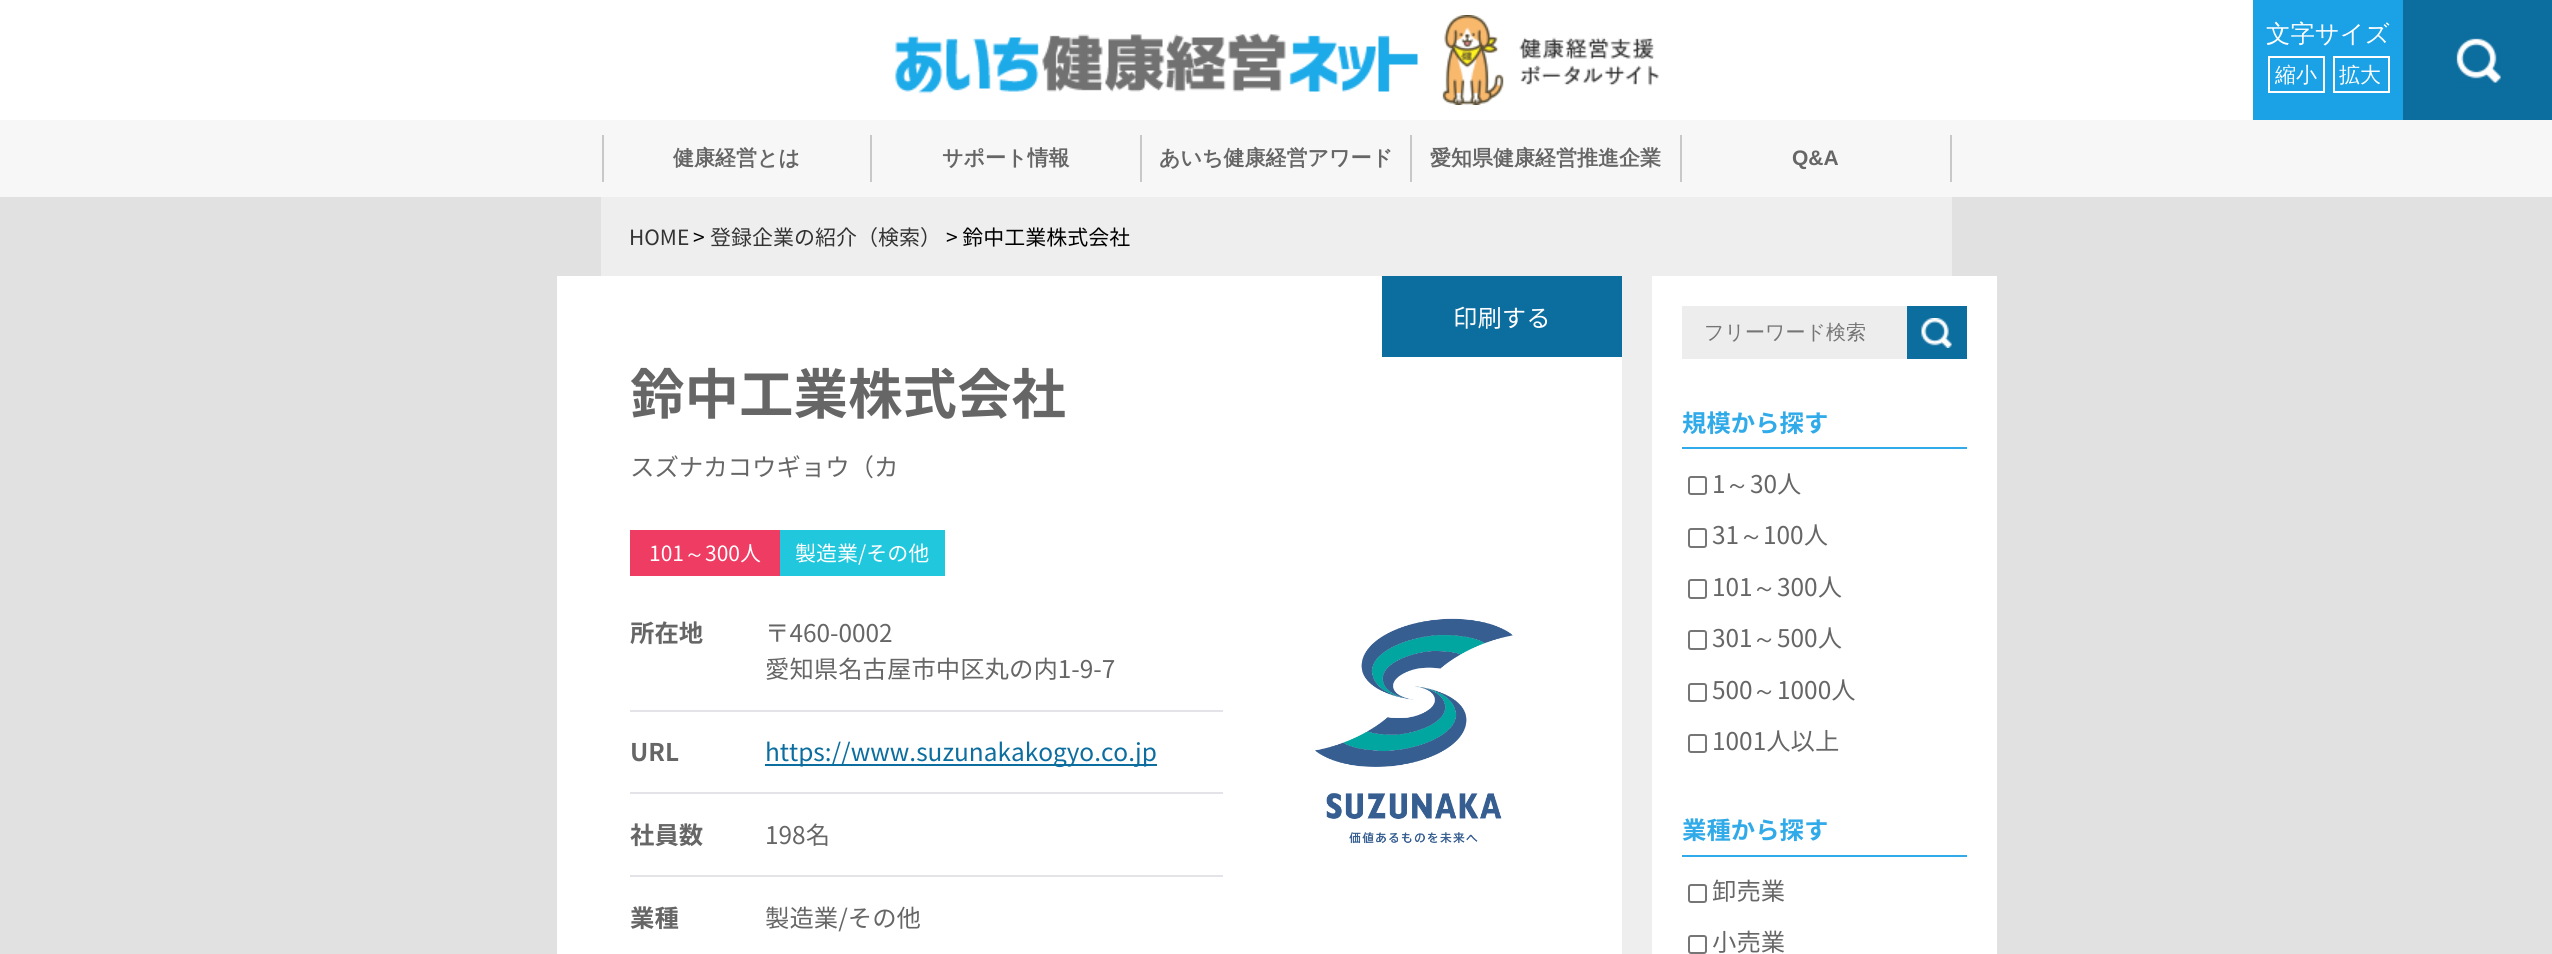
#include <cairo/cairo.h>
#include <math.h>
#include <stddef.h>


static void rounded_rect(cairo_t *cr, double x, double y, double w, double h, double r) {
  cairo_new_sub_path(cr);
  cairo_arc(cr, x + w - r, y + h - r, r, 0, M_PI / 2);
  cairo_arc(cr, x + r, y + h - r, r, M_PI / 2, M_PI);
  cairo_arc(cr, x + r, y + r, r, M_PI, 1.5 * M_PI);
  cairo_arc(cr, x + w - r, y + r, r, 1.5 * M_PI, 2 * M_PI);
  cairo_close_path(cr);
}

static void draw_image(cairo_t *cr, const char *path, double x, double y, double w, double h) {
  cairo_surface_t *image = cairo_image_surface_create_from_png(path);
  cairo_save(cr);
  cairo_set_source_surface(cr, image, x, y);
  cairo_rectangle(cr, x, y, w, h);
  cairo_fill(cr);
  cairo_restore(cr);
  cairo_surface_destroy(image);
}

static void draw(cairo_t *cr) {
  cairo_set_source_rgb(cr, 225 / 255.0, 225 / 255.0, 225 / 255.0);
  cairo_paint(cr);
  cairo_set_source_rgb(cr, 1, 1, 1);
  cairo_rectangle(cr, 0, 0, 2253, 120);
  cairo_fill(cr);
  draw_image(cr, "images/1.png", 895, 15, 764, 90);
  cairo_set_source_rgb(cr, 26 / 255.0, 161 / 255.0, 230 / 255.0);
  cairo_rectangle(cr, 2253, 0, 150, 120);
  cairo_fill(cr);
  cairo_rectangle(cr, 2269, 57, 55, 35);
  cairo_set_source_rgb(cr, 1, 1, 1);
  cairo_stroke(cr);
  cairo_rectangle(cr, 2334, 57, 55, 35);
  cairo_stroke(cr);
  cairo_set_source_rgb(cr, 12 / 255.0, 109 / 255.0, 159 / 255.0);
  cairo_rectangle(cr, 2403, 0, 149, 120);
  cairo_fill(cr);
  draw_image(cr, "images/2.png", 2456, 38, 45, 45);
  cairo_set_source_rgb(cr, 247 / 255.0, 247 / 255.0, 247 / 255.0);
  cairo_rectangle(cr, 0, 120, 2552, 77);
  cairo_fill(cr);
  cairo_set_source_rgb(cr, 200 / 255.0, 200 / 255.0, 200 / 255.0);
  cairo_rectangle(cr, 870, 135, 2, 47);
  cairo_fill(cr);
  cairo_rectangle(cr, 602, 135, 2, 47);
  cairo_fill(cr);
  cairo_rectangle(cr, 1140, 135, 2, 47);
  cairo_fill(cr);
  cairo_rectangle(cr, 1410, 135, 2, 47);
  cairo_fill(cr);
  cairo_rectangle(cr, 1680, 135, 2, 47);
  cairo_fill(cr);
  cairo_rectangle(cr, 1950, 135, 2, 47);
  cairo_fill(cr);
  cairo_set_source_rgb(cr, 238 / 255.0, 238 / 255.0, 238 / 255.0);
  cairo_rectangle(cr, 601, 197, 1351, 757);
  cairo_fill(cr);
  cairo_set_source_rgb(cr, 1, 1, 1);
  cairo_rectangle(cr, 557, 276, 1065, 678);
  cairo_fill(cr);
  cairo_set_source_rgb(cr, 12 / 255.0, 109 / 255.0, 159 / 255.0);
  cairo_rectangle(cr, 1382, 276, 240, 81);
  cairo_fill(cr);
  cairo_set_source_rgb(cr, 239 / 255.0, 60 / 255.0, 98 / 255.0);
  cairo_rectangle(cr, 630, 530, 150, 46);
  cairo_fill(cr);
  cairo_set_source_rgb(cr, 33 / 255.0, 200 / 255.0, 221 / 255.0);
  cairo_rectangle(cr, 780, 530, 165, 46);
  cairo_fill(cr);
  cairo_set_source_rgb(cr, 227 / 255.0, 227 / 255.0, 232 / 255.0);
  cairo_rectangle(cr, 630, 710, 593, 2);
  cairo_fill(cr);
  cairo_rectangle(cr, 630, 792, 593, 2);
  cairo_fill(cr);
  cairo_set_source_rgb(cr, 12 / 255.0, 109 / 255.0, 159 / 255.0);
  cairo_rectangle(cr, 765, 764, 392, 2);
  cairo_fill(cr);
  cairo_set_source_rgb(cr, 227 / 255.0, 227 / 255.0, 232 / 255.0);
  cairo_rectangle(cr, 630, 875, 593, 2);
  cairo_fill(cr);
  draw_image(cr, "images/3.png", 1315, 618, 198, 226);
  cairo_set_source_rgb(cr, 1, 1, 1);
  cairo_rectangle(cr, 1652, 276, 345, 678);
  cairo_fill(cr);
  cairo_set_source_rgb(cr, 237 / 255.0, 237 / 255.0, 237 / 255.0);
  cairo_rectangle(cr, 1682, 306, 225, 53);
  cairo_fill(cr);
  cairo_set_source_rgb(cr, 12 / 255.0, 109 / 255.0, 159 / 255.0);
  cairo_rectangle(cr, 1907, 306, 60, 53);
  cairo_fill(cr);
  draw_image(cr, "images/4.png", 1921, 318, 31, 30);
  cairo_set_source_rgb(cr, 48 / 255.0, 170 / 255.0, 232 / 255.0);
  cairo_rectangle(cr, 1682, 447, 285, 2);
  cairo_fill(cr);
  rounded_rect(cr, 1689, 477, 17, 17, 2);
  cairo_set_source_rgb(cr, 118 / 255.0, 118 / 255.0, 118 / 255.0);
  cairo_stroke(cr);
  rounded_rect(cr, 1689, 529, 17, 18, 2);
  cairo_stroke(cr);
  rounded_rect(cr, 1689, 580, 17, 18, 2);
  cairo_stroke(cr);
  rounded_rect(cr, 1689, 631, 17, 18, 2);
  cairo_stroke(cr);
  rounded_rect(cr, 1689, 684, 17, 17, 2);
  cairo_stroke(cr);
  rounded_rect(cr, 1689, 735, 17, 17, 2);
  cairo_stroke(cr);
  cairo_set_source_rgb(cr, 48 / 255.0, 170 / 255.0, 232 / 255.0);
  cairo_rectangle(cr, 1682, 855, 285, 2);
  cairo_fill(cr);
  rounded_rect(cr, 1689, 885, 17, 17, 2);
  cairo_set_source_rgb(cr, 118 / 255.0, 118 / 255.0, 118 / 255.0);
  cairo_stroke(cr);
  rounded_rect(cr, 1689, 936, 17, 17, 2);
  cairo_stroke(cr);
  cairo_select_font_face(cr, "WenQuanYi Zen Hei Medium", CAIRO_FONT_SLANT_NORMAL, CAIRO_FONT_WEIGHT_NORMAL);
  cairo_set_font_size(cr, 24.4);
  cairo_set_source_rgb(cr, 1, 1, 1);
  cairo_move_to(cr, 2266, 42);
  cairo_show_text(cr, "文字サイズ");
  cairo_set_font_size(cr, 21);
  cairo_move_to(cr, 2275, 82);
  cairo_show_text(cr, "縮小");
  cairo_move_to(cr, 2339, 82);
  cairo_show_text(cr, "拡大");
  cairo_select_font_face(cr, "WenQuanYi Zen Hei", CAIRO_FONT_SLANT_NORMAL, CAIRO_FONT_WEIGHT_BOLD);
  cairo_set_source_rgb(cr, 102 / 255.0, 102 / 255.0, 102 / 255.0);
  cairo_move_to(cr, 673, 165);
  cairo_show_text(cr, "健康経営とは");
  cairo_move_to(cr, 942, 165);
  cairo_show_text(cr, "サポート情報");
  cairo_move_to(cr, 1159, 165);
  cairo_show_text(cr, "あいち健康経営アワード");
  cairo_move_to(cr, 1430, 165);
  cairo_show_text(cr, "愛知県健康経営推進企業");
  cairo_select_font_face(cr, "Liberation Sans", CAIRO_FONT_SLANT_NORMAL, CAIRO_FONT_WEIGHT_BOLD);
  cairo_move_to(cr, 1792, 165);
  cairo_show_text(cr, "Q&A");
  cairo_select_font_face(cr, "Noto Sans JP", CAIRO_FONT_SLANT_NORMAL, CAIRO_FONT_WEIGHT_NORMAL);
  cairo_set_source_rgb(cr, 51 / 255.0, 51 / 255.0, 51 / 255.0);
  cairo_move_to(cr, 629, 245);
  cairo_show_text(cr, "HOME");
  cairo_set_source_rgb(cr, 0, 0, 0);
  cairo_move_to(cr, 693, 245);
  cairo_show_text(cr, ">");
  cairo_set_source_rgb(cr, 51 / 255.0, 51 / 255.0, 51 / 255.0);
  cairo_move_to(cr, 710, 245);
  cairo_show_text(cr, "登録企業の紹介（検索）");
  cairo_set_source_rgb(cr, 0, 0, 0);
  cairo_move_to(cr, 946, 245);
  cairo_show_text(cr, "> 鈴中工業株式会社");
  cairo_set_font_size(cr, 24.4);
  cairo_set_source_rgb(cr, 1, 1, 1);
  cairo_move_to(cr, 1453, 327);
  cairo_show_text(cr, "印刷する");
  cairo_select_font_face(cr, "Noto Sans JP", CAIRO_FONT_SLANT_NORMAL, CAIRO_FONT_WEIGHT_BOLD);
  cairo_set_font_size(cr, 54.5);
  cairo_set_source_rgb(cr, 102 / 255.0, 102 / 255.0, 102 / 255.0);
  cairo_move_to(cr, 630, 414);
  cairo_show_text(cr, "鈴中工業株式会社");
  cairo_select_font_face(cr, "Noto Sans JP", CAIRO_FONT_SLANT_NORMAL, CAIRO_FONT_WEIGHT_NORMAL);
  cairo_set_font_size(cr, 24.4);
  cairo_move_to(cr, 630, 476);
  cairo_show_text(cr, "スズナカコウギョウ（カ");
  cairo_set_font_size(cr, 21);
  cairo_set_source_rgb(cr, 1, 1, 1);
  cairo_move_to(cr, 649, 561);
  cairo_show_text(cr, "101");
  cairo_select_font_face(cr, "WenQuanYi Zen Hei Medium", CAIRO_FONT_SLANT_NORMAL, CAIRO_FONT_WEIGHT_NORMAL);
  cairo_move_to(cr, 684, 561);
  cairo_show_text(cr, "～");
  cairo_select_font_face(cr, "Noto Sans JP", CAIRO_FONT_SLANT_NORMAL, CAIRO_FONT_WEIGHT_NORMAL);
  cairo_move_to(cr, 705, 561);
  cairo_show_text(cr, "300人");
  cairo_move_to(cr, 795, 561);
  cairo_show_text(cr, "製造業/その他");
  cairo_select_font_face(cr, "Noto Sans JP", CAIRO_FONT_SLANT_NORMAL, CAIRO_FONT_WEIGHT_BOLD);
  cairo_set_font_size(cr, 24.4);
  cairo_set_source_rgb(cr, 102 / 255.0, 102 / 255.0, 102 / 255.0);
  cairo_move_to(cr, 630, 642);
  cairo_show_text(cr, "所在地");
  cairo_select_font_face(cr, "Noto Sans JP", CAIRO_FONT_SLANT_NORMAL, CAIRO_FONT_WEIGHT_NORMAL);
  cairo_move_to(cr, 765, 642);
  cairo_show_text(cr, "〒460-0002");
  cairo_move_to(cr, 765, 678);
  cairo_show_text(cr, "愛知県名古屋市中区丸の内1-9-7");
  cairo_select_font_face(cr, "Noto Sans JP", CAIRO_FONT_SLANT_NORMAL, CAIRO_FONT_WEIGHT_BOLD);
  cairo_move_to(cr, 630, 761);
  cairo_show_text(cr, "URL");
  cairo_select_font_face(cr, "Noto Sans JP", CAIRO_FONT_SLANT_NORMAL, CAIRO_FONT_WEIGHT_NORMAL);
  cairo_set_source_rgb(cr, 12 / 255.0, 109 / 255.0, 159 / 255.0);
  cairo_move_to(cr, 765, 761);
  cairo_show_text(cr, "https://www.suzunakakogyo.co.jp");
  cairo_select_font_face(cr, "Noto Sans JP", CAIRO_FONT_SLANT_NORMAL, CAIRO_FONT_WEIGHT_BOLD);
  cairo_set_source_rgb(cr, 102 / 255.0, 102 / 255.0, 102 / 255.0);
  cairo_move_to(cr, 630, 844);
  cairo_show_text(cr, "社員数");
  cairo_select_font_face(cr, "Noto Sans JP", CAIRO_FONT_SLANT_NORMAL, CAIRO_FONT_WEIGHT_NORMAL);
  cairo_move_to(cr, 765, 844);
  cairo_show_text(cr, "198名");
  cairo_select_font_face(cr, "Noto Sans JP", CAIRO_FONT_SLANT_NORMAL, CAIRO_FONT_WEIGHT_BOLD);
  cairo_move_to(cr, 630, 927);
  cairo_show_text(cr, "業種");
  cairo_select_font_face(cr, "Noto Sans JP", CAIRO_FONT_SLANT_NORMAL, CAIRO_FONT_WEIGHT_NORMAL);
  cairo_move_to(cr, 765, 927);
  cairo_show_text(cr, "製造業/その他");
  cairo_select_font_face(cr, "WenQuanYi Zen Hei Medium", CAIRO_FONT_SLANT_NORMAL, CAIRO_FONT_WEIGHT_NORMAL);
  cairo_set_font_size(cr, 20);
  cairo_set_source_rgb(cr, 117 / 255.0, 117 / 255.0, 117 / 255.0);
  cairo_move_to(cr, 1704, 339);
  cairo_show_text(cr, "フリーワード検索");
  cairo_select_font_face(cr, "Noto Sans JP", CAIRO_FONT_SLANT_NORMAL, CAIRO_FONT_WEIGHT_BOLD);
  cairo_set_font_size(cr, 24.4);
  cairo_set_source_rgb(cr, 48 / 255.0, 170 / 255.0, 232 / 255.0);
  cairo_move_to(cr, 1682, 432);
  cairo_show_text(cr, "規模から探す");
  cairo_select_font_face(cr, "Noto Sans JP", CAIRO_FONT_SLANT_NORMAL, CAIRO_FONT_WEIGHT_NORMAL);
  cairo_set_source_rgb(cr, 102 / 255.0, 102 / 255.0, 102 / 255.0);
  cairo_move_to(cr, 1712, 493);
  cairo_show_text(cr, "1");
  cairo_select_font_face(cr, "WenQuanYi Zen Hei Medium", CAIRO_FONT_SLANT_NORMAL, CAIRO_FONT_WEIGHT_NORMAL);
  cairo_move_to(cr, 1725, 493);
  cairo_show_text(cr, "～");
  cairo_select_font_face(cr, "Noto Sans JP", CAIRO_FONT_SLANT_NORMAL, CAIRO_FONT_WEIGHT_NORMAL);
  cairo_move_to(cr, 1750, 493);
  cairo_show_text(cr, "30人");
  cairo_move_to(cr, 1712, 544);
  cairo_show_text(cr, "31");
  cairo_select_font_face(cr, "WenQuanYi Zen Hei Medium", CAIRO_FONT_SLANT_NORMAL, CAIRO_FONT_WEIGHT_NORMAL);
  cairo_move_to(cr, 1739, 544);
  cairo_show_text(cr, "～");
  cairo_select_font_face(cr, "Noto Sans JP", CAIRO_FONT_SLANT_NORMAL, CAIRO_FONT_WEIGHT_NORMAL);
  cairo_move_to(cr, 1763, 544);
  cairo_show_text(cr, "100人");
  cairo_move_to(cr, 1712, 596);
  cairo_show_text(cr, "101");
  cairo_select_font_face(cr, "WenQuanYi Zen Hei Medium", CAIRO_FONT_SLANT_NORMAL, CAIRO_FONT_WEIGHT_NORMAL);
  cairo_move_to(cr, 1752, 596);
  cairo_show_text(cr, "～");
  cairo_select_font_face(cr, "Noto Sans JP", CAIRO_FONT_SLANT_NORMAL, CAIRO_FONT_WEIGHT_NORMAL);
  cairo_move_to(cr, 1777, 596);
  cairo_show_text(cr, "300人");
  cairo_move_to(cr, 1712, 647);
  cairo_show_text(cr, "301");
  cairo_select_font_face(cr, "WenQuanYi Zen Hei Medium", CAIRO_FONT_SLANT_NORMAL, CAIRO_FONT_WEIGHT_NORMAL);
  cairo_move_to(cr, 1752, 647);
  cairo_show_text(cr, "～");
  cairo_select_font_face(cr, "Noto Sans JP", CAIRO_FONT_SLANT_NORMAL, CAIRO_FONT_WEIGHT_NORMAL);
  cairo_move_to(cr, 1777, 647);
  cairo_show_text(cr, "500人");
  cairo_move_to(cr, 1712, 699);
  cairo_show_text(cr, "500");
  cairo_select_font_face(cr, "WenQuanYi Zen Hei Medium", CAIRO_FONT_SLANT_NORMAL, CAIRO_FONT_WEIGHT_NORMAL);
  cairo_move_to(cr, 1752, 699);
  cairo_show_text(cr, "～");
  cairo_select_font_face(cr, "Noto Sans JP", CAIRO_FONT_SLANT_NORMAL, CAIRO_FONT_WEIGHT_NORMAL);
  cairo_move_to(cr, 1777, 699);
  cairo_show_text(cr, "1000人");
  cairo_move_to(cr, 1712, 750);
  cairo_show_text(cr, "1001人以上");
  cairo_select_font_face(cr, "Noto Sans JP", CAIRO_FONT_SLANT_NORMAL, CAIRO_FONT_WEIGHT_BOLD);
  cairo_set_source_rgb(cr, 48 / 255.0, 170 / 255.0, 232 / 255.0);
  cairo_move_to(cr, 1682, 839);
  cairo_show_text(cr, "業種から探す");
  cairo_select_font_face(cr, "Noto Sans JP", CAIRO_FONT_SLANT_NORMAL, CAIRO_FONT_WEIGHT_NORMAL);
  cairo_set_source_rgb(cr, 102 / 255.0, 102 / 255.0, 102 / 255.0);
  cairo_move_to(cr, 1712, 900);
  cairo_show_text(cr, "卸売業");
  cairo_move_to(cr, 1712, 951);
  cairo_show_text(cr, "小売業");
}

int main(void) {
  cairo_surface_t *surface = cairo_image_surface_create(CAIRO_FORMAT_RGB24, 2552, 954);
  cairo_t *cr = cairo_create(surface);
  cairo_font_options_t *options = cairo_font_options_create();
  cairo_font_options_set_hint_metrics(options, CAIRO_HINT_METRICS_OFF);
  cairo_font_options_set_hint_style(options, CAIRO_HINT_STYLE_NONE);
  cairo_set_font_options(cr, options);
  cairo_set_miter_limit(cr, 4);
  draw(cr);
  cairo_surface_write_to_png(surface, "out.png");
  cairo_font_options_destroy(options);
  cairo_destroy(cr);
  cairo_surface_destroy(surface);
  return 0;
}
